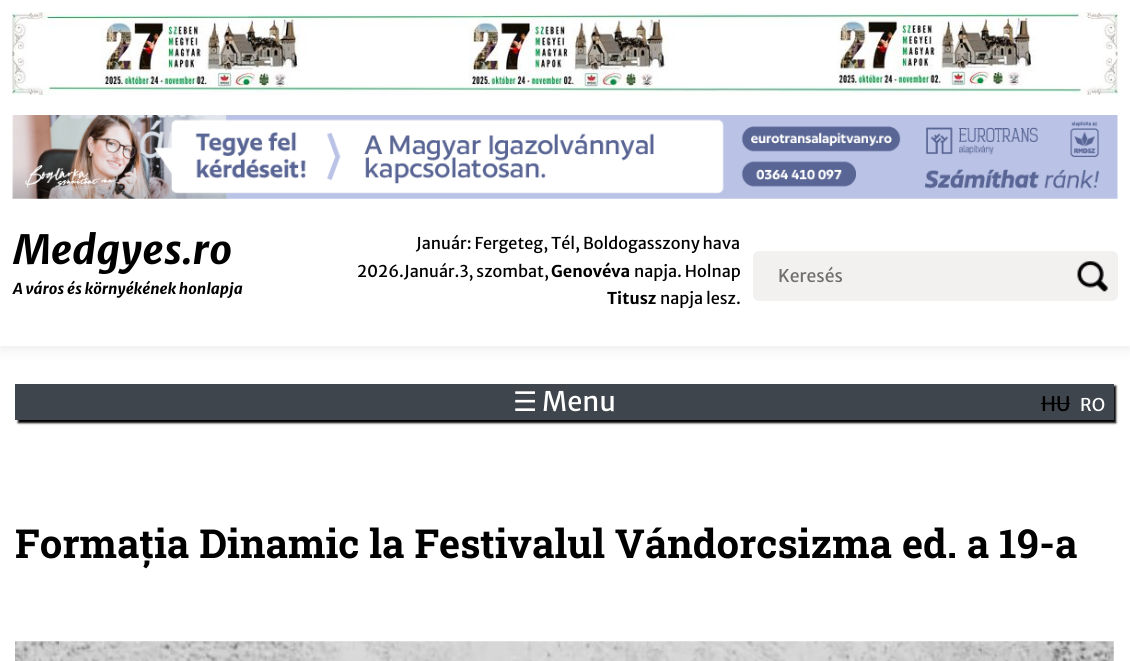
#include <cairo/cairo.h>
#include <math.h>
#include <stddef.h>


static void rounded_rect(cairo_t *cr, double x, double y, double w, double h, double r) {
  cairo_new_sub_path(cr);
  cairo_arc(cr, x + w - r, y + h - r, r, 0, M_PI / 2);
  cairo_arc(cr, x + r, y + h - r, r, M_PI / 2, M_PI);
  cairo_arc(cr, x + r, y + r, r, M_PI, 1.5 * M_PI);
  cairo_arc(cr, x + w - r, y + r, r, 1.5 * M_PI, 2 * M_PI);
  cairo_close_path(cr);
}

static void draw_shadow(cairo_t *cr, double x, double y, double w, double h, double r, double blur, double alpha) {
  cairo_push_group_with_content(cr, CAIRO_CONTENT_ALPHA);
  cairo_set_operator(cr, CAIRO_OPERATOR_SOURCE);
  for (int i = 15; i >= -15 && fmin(w, h) + blur * i / 3 > 0; i -= 2) {
    double e = blur * i / 6;
    cairo_set_source_rgba(cr, 0, 0, 0, alpha * erfc((i - 1) / 8.5) / 2);
    rounded_rect(cr, x - e, y - e, w + 2 * e, h + 2 * e, fmax(0, fmin(r + e + blur * .6, fmin(w, h) / 2 + e)));
    cairo_fill(cr);
  }
  cairo_pattern_t *soft = cairo_pop_group(cr);
  cairo_mask(cr, soft);
  cairo_pattern_destroy(soft);
}

static void draw_image(cairo_t *cr, const char *path, double x, double y, double w, double h) {
  cairo_surface_t *image = cairo_image_surface_create_from_png(path);
  cairo_save(cr);
  cairo_set_source_surface(cr, image, x, y);
  cairo_rectangle(cr, x, y, w, h);
  cairo_fill(cr);
  cairo_restore(cr);
  cairo_surface_destroy(image);
}

static void draw(cairo_t *cr) {
  cairo_set_source_rgb(cr, 1, 1, 1);
  cairo_paint(cr);
  cairo_save(cr);
  cairo_rectangle(cr, 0, 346, 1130, 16);
  cairo_clip(cr);
  cairo_set_source_rgb(cr, 238 / 255.0, 238 / 255.0, 238 / 255.0);
  draw_shadow(cr, 0, 4, 1130, 346, 0, 6, 1);
  cairo_restore(cr);
  draw_image(cr, "images/1.png", 12, 12, 1106, 83);
  draw_image(cr, "images/2.png", 12, 115, 1106, 84);
  cairo_set_source_rgb(cr, 243 / 255.0, 240 / 255.0, 240 / 255.0);
  rounded_rect(cr, 753, 251, 365, 50, 6);
  cairo_fill(cr);
  draw_image(cr, "images/3.png", 1077, 261, 31, 31);
  cairo_set_source_rgb(cr, 0, 0, 0);
  draw_shadow(cr, 18, 386, 1098, 37, 0, 1, 1);
  cairo_set_source_rgb(cr, 62 / 255.0, 69 / 255.0, 76 / 255.0);
  cairo_rectangle(cr, 15, 384, 1099, 36);
  cairo_fill(cr);
  cairo_set_source_rgb(cr, 0, 0, 0);
  cairo_rectangle(cr, 1041, 403, 29, 1);
  cairo_fill(cr);
  draw_image(cr, "images/4.png", 15, 641, 1099, 20);
  cairo_select_font_face(cr, "Merriweather Sans", CAIRO_FONT_SLANT_ITALIC, CAIRO_FONT_WEIGHT_BOLD);
  cairo_set_font_size(cr, 40);
  cairo_move_to(cr, 13, 264);
  cairo_show_text(cr, "Medgyes.ro");
  cairo_set_font_size(cr, 15);
  cairo_move_to(cr, 13, 294);
  cairo_show_text(cr, "A város és környékének honlapja");
  cairo_select_font_face(cr, "Merriweather Sans", CAIRO_FONT_SLANT_NORMAL, CAIRO_FONT_WEIGHT_NORMAL);
  cairo_set_font_size(cr, 16.25);
  cairo_move_to(cr, 416, 249);
  cairo_show_text(cr, "Január: Fergeteg, Tél, Boldogasszony hava");
  cairo_move_to(cr, 357, 277);
  cairo_show_text(cr, "2026.Január.3, szombat,");
  cairo_select_font_face(cr, "Merriweather Sans", CAIRO_FONT_SLANT_NORMAL, CAIRO_FONT_WEIGHT_BOLD);
  cairo_move_to(cr, 551, 277);
  cairo_show_text(cr, "Genovéva");
  cairo_select_font_face(cr, "Merriweather Sans", CAIRO_FONT_SLANT_NORMAL, CAIRO_FONT_WEIGHT_NORMAL);
  cairo_move_to(cr, 634, 277);
  cairo_show_text(cr, "napja. Holnap");
  cairo_select_font_face(cr, "Merriweather Sans", CAIRO_FONT_SLANT_NORMAL, CAIRO_FONT_WEIGHT_BOLD);
  cairo_move_to(cr, 607, 304);
  cairo_show_text(cr, "Titusz");
  cairo_select_font_face(cr, "Merriweather Sans", CAIRO_FONT_SLANT_NORMAL, CAIRO_FONT_WEIGHT_NORMAL);
  cairo_move_to(cr, 660, 304);
  cairo_show_text(cr, "napja lesz.");
  cairo_set_font_size(cr, 17.5);
  cairo_set_source_rgb(cr, 112 / 255.0, 110 / 255.0, 110 / 255.0);
  cairo_move_to(cr, 778, 282);
  cairo_show_text(cr, "Keresés");
  cairo_select_font_face(cr, "DejaVu Sans", CAIRO_FONT_SLANT_NORMAL, CAIRO_FONT_WEIGHT_NORMAL);
  cairo_set_font_size(cr, 27);
  cairo_set_source_rgb(cr, 1, 1, 1);
  cairo_move_to(cr, 513, 411);
  cairo_show_text(cr, "☰");
  cairo_select_font_face(cr, "Merriweather Sans", CAIRO_FONT_SLANT_NORMAL, CAIRO_FONT_WEIGHT_NORMAL);
  cairo_move_to(cr, 542, 411);
  cairo_show_text(cr, "Menu");
  cairo_set_font_size(cr, 20);
  cairo_set_source_rgb(cr, 0, 0, 0);
  cairo_move_to(cr, 1041, 411);
  cairo_show_text(cr, "HU");
  cairo_set_font_size(cr, 17.5);
  cairo_set_source_rgb(cr, 1, 1, 1);
  cairo_move_to(cr, 1080, 411);
  cairo_show_text(cr, "RO");
  cairo_select_font_face(cr, "Roboto Slab", CAIRO_FONT_SLANT_NORMAL, CAIRO_FONT_WEIGHT_BOLD);
  cairo_set_font_size(cr, 40);
  cairo_set_source_rgb(cr, 0, 0, 0);
  cairo_move_to(cr, 15, 558);
  cairo_show_text(cr, "Formația Dinamic la Festivalul Vándorcsizma ed. a 19-a");
}

int main(void) {
  cairo_surface_t *surface = cairo_image_surface_create(CAIRO_FORMAT_RGB24, 1130, 661);
  cairo_t *cr = cairo_create(surface);
  cairo_font_options_t *options = cairo_font_options_create();
  cairo_font_options_set_hint_metrics(options, CAIRO_HINT_METRICS_OFF);
  cairo_font_options_set_hint_style(options, CAIRO_HINT_STYLE_NONE);
  cairo_set_font_options(cr, options);
  cairo_set_miter_limit(cr, 4);
  draw(cr);
  cairo_surface_write_to_png(surface, "out.png");
  cairo_font_options_destroy(options);
  cairo_destroy(cr);
  cairo_surface_destroy(surface);
  return 0;
}
